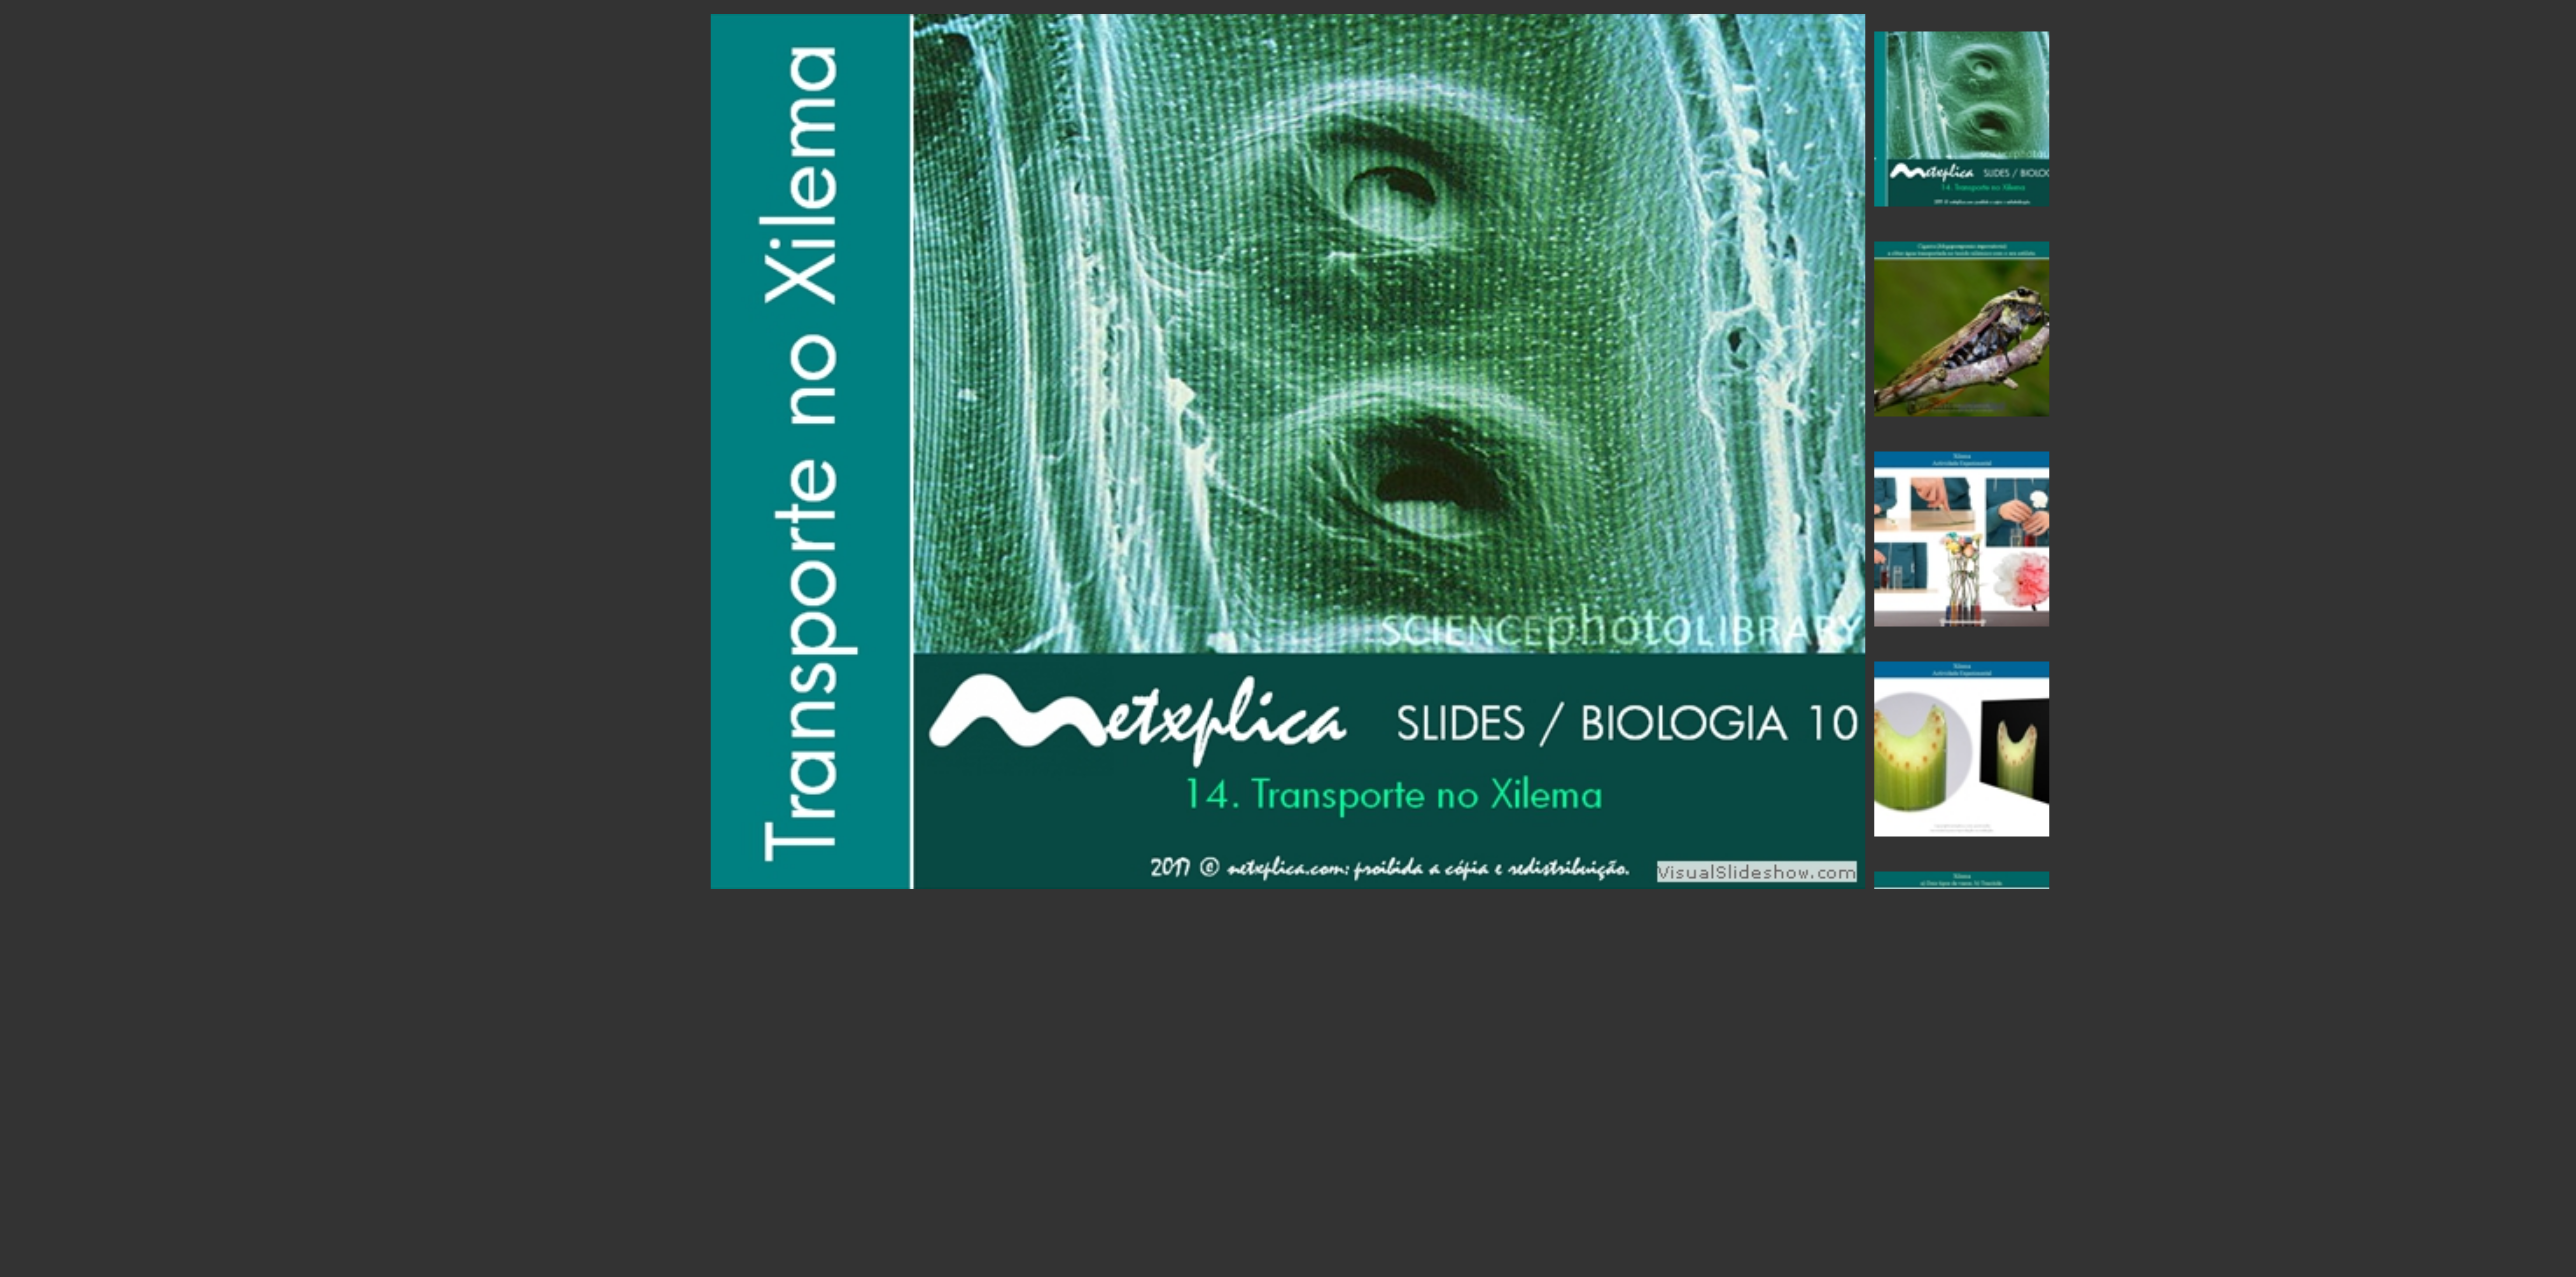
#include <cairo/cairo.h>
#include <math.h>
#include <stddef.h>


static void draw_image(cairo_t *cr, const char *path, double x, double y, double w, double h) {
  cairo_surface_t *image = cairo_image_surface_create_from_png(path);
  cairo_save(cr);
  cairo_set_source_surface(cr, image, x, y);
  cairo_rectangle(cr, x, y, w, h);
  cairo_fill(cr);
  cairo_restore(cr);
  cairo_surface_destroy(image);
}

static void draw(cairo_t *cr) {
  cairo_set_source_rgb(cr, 51 / 255.0, 51 / 255.0, 51 / 255.0);
  cairo_paint(cr);
  draw_image(cr, "images/1.png", 710, 14, 1156, 875);
  draw_image(cr, "images/2.png", 1874, 31, 176, 176);
  draw_image(cr, "images/3.png", 1874, 241, 176, 176);
  draw_image(cr, "images/4.png", 1874, 451, 176, 176);
  draw_image(cr, "images/5.png", 1874, 661, 176, 176);
  draw_image(cr, "images/6.png", 1874, 871, 176, 18);
}

int main(void) {
  cairo_surface_t *surface = cairo_image_surface_create(CAIRO_FORMAT_RGB24, 2576, 1277);
  cairo_t *cr = cairo_create(surface);
  cairo_font_options_t *options = cairo_font_options_create();
  cairo_font_options_set_hint_metrics(options, CAIRO_HINT_METRICS_OFF);
  cairo_font_options_set_hint_style(options, CAIRO_HINT_STYLE_NONE);
  cairo_set_font_options(cr, options);
  cairo_set_miter_limit(cr, 4);
  draw(cr);
  cairo_surface_write_to_png(surface, "out.png");
  cairo_font_options_destroy(options);
  cairo_destroy(cr);
  cairo_surface_destroy(surface);
  return 0;
}
